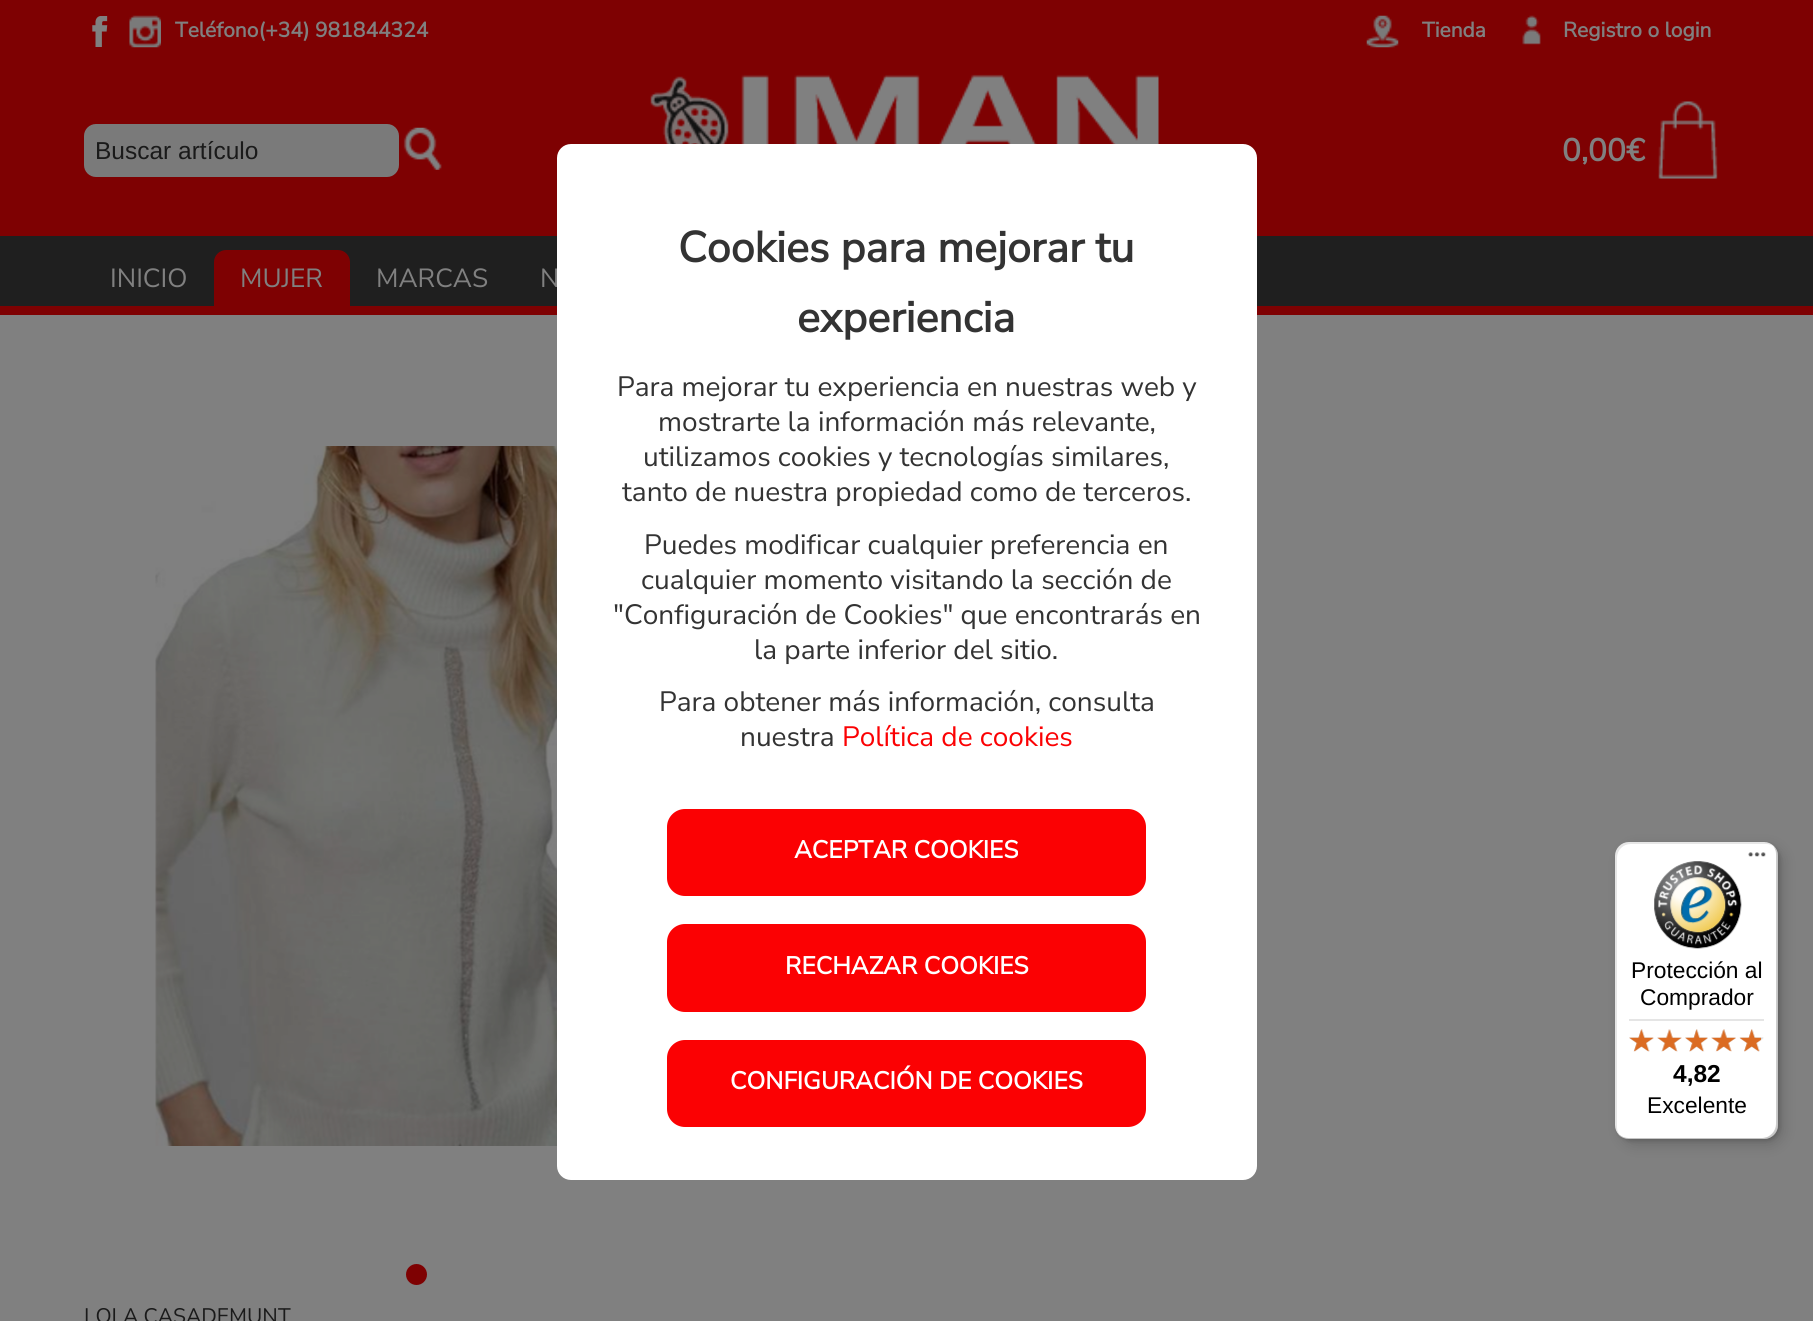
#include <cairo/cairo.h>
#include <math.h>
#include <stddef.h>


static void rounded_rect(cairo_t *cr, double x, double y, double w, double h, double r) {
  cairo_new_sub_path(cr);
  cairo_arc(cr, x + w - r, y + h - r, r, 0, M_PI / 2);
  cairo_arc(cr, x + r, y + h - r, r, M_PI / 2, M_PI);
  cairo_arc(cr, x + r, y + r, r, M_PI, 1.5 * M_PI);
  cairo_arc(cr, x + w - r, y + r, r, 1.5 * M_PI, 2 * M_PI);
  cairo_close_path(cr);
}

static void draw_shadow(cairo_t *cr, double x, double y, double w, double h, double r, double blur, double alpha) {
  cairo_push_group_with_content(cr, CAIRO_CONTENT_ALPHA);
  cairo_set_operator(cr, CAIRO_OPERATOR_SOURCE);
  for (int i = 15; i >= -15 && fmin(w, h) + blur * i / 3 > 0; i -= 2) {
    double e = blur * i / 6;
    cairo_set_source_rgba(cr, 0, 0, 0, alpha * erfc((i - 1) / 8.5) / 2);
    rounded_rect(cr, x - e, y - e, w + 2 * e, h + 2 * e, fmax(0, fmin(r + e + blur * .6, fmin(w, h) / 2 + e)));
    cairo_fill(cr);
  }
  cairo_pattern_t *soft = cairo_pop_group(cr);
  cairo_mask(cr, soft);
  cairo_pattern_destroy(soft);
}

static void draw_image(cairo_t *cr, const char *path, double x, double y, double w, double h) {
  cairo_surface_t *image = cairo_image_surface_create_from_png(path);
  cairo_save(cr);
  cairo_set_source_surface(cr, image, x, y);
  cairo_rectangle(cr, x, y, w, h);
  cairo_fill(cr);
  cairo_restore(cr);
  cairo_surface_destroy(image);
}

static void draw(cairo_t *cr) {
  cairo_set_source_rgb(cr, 128 / 255.0, 128 / 255.0, 128 / 255.0);
  cairo_paint(cr);
  cairo_set_source_rgb(cr, 126 / 255.0, 1 / 255.0, 2 / 255.0);
  cairo_rectangle(cr, 0, 0, 1813, 315);
  cairo_fill(cr);
  draw_image(cr, "images/1.png", 92, 16, 16, 31);
  draw_image(cr, "images/2.png", 129, 15, 32, 33);
  draw_image(cr, "images/3.png", 1366, 15, 33, 33);
  draw_image(cr, "images/4.png", 1522, 15, 19, 30);
  draw_image(cr, "images/5.png", 650, 74, 509, 70);
  cairo_set_source_rgb(cr, 122 / 255.0, 122 / 255.0, 122 / 255.0);
  rounded_rect(cr, 84, 124, 315, 53, 12);
  cairo_fill(cr);
  draw_image(cr, "images/6.png", 403, 127, 39, 43);
  draw_image(cr, "images/7.png", 1658, 101, 60, 78);
  cairo_set_source_rgb(cr, 31 / 255.0, 31 / 255.0, 31 / 255.0);
  cairo_rectangle(cr, 0, 236, 1813, 70);
  cairo_fill(cr);
  cairo_set_source_rgb(cr, 126 / 255.0, 1 / 255.0, 2 / 255.0);
  cairo_new_path(cr);
  cairo_move_to(cr, 226, 250);
  cairo_line_to(cr, 338, 250);
  cairo_curve_to(cr, 344.5, 250, 350, 255.5, 350, 262);
  cairo_line_to(cr, 350, 306);
  cairo_line_to(cr, 214, 306);
  cairo_line_to(cr, 214, 262);
  cairo_curve_to(cr, 214, 255.5, 219.5, 250, 226, 250);
  cairo_close_path(cr);
  cairo_fill(cr);
  draw_image(cr, "images/8.png", 155, 446, 402, 700);
  cairo_arc(cr, 416.5, 1274.5, 10.5, 0, 2 * M_PI);
  cairo_fill(cr);
  cairo_set_source_rgb(cr, 0, 0, 0);
  draw_shadow(cr, 1621, 847, 162, 298, 14, 7, 0.15);
  draw_shadow(cr, 1617, 844, 163, 297, 14, 2, 0.15);
  cairo_set_source_rgb(cr, 1, 1, 1);
  rounded_rect(cr, 1615, 842, 163, 297, 14);
  cairo_fill(cr);
  cairo_set_source_rgba(cr, 0, 0, 0, 0.1);
  cairo_new_path(cr);
  cairo_move_to(cr, 1631, 844);
  cairo_line_to(cr, 1766, 844);
  cairo_curve_to(cr, 1769, 844, 1773, 845, 1775, 848);
  cairo_curve_to(cr, 1773, 844, 1769, 842, 1764, 842);
  cairo_line_to(cr, 1629, 842);
  cairo_curve_to(cr, 1621, 842, 1615, 848, 1615, 856);
  cairo_line_to(cr, 1615, 1125);
  cairo_curve_to(cr, 1615, 1129, 1617, 1133, 1620, 1135);
  cairo_curve_to(cr, 1618, 1133, 1617, 1130, 1617, 1127);
  cairo_line_to(cr, 1617, 858);
  cairo_curve_to(cr, 1617, 850, 1623, 844, 1631, 844);
  cairo_close_path(cr);
  cairo_fill(cr);
  cairo_set_source_rgba(cr, 0, 0, 0, 0.2);
  cairo_new_path(cr);
  cairo_move_to(cr, 1618, 1133);
  cairo_curve_to(cr, 1620, 1137, 1624, 1139, 1629, 1139);
  cairo_line_to(cr, 1764, 1139);
  cairo_curve_to(cr, 1772, 1139, 1778, 1133, 1778, 1125);
  cairo_line_to(cr, 1778, 856);
  cairo_curve_to(cr, 1778, 852, 1776, 848, 1773, 846);
  cairo_curve_to(cr, 1775, 848, 1776, 851, 1776, 854);
  cairo_line_to(cr, 1776, 1124);
  cairo_curve_to(cr, 1776, 1131, 1770, 1138, 1762, 1138);
  cairo_line_to(cr, 1628, 1138);
  cairo_curve_to(cr, 1624, 1138, 1620, 1136, 1618, 1133);
  cairo_close_path(cr);
  cairo_fill(cr);
  cairo_set_source_rgba(cr, 50 / 255.0, 50 / 255.0, 50 / 255.0, 0.2);
  cairo_new_path(cr);
  cairo_move_to(cr, 1620, 1135);
  cairo_curve_to(cr, 1622, 1138, 1625, 1139, 1629, 1139);
  cairo_line_to(cr, 1764, 1139);
  cairo_curve_to(cr, 1772, 1139, 1778, 1133, 1778, 1125);
  cairo_line_to(cr, 1778, 856);
  cairo_curve_to(cr, 1778, 852, 1777, 849, 1774, 847);
  cairo_curve_to(cr, 1776, 849, 1777, 852, 1777, 855);
  cairo_line_to(cr, 1777, 1124);
  cairo_curve_to(cr, 1777, 1132, 1771, 1138, 1763, 1138);
  cairo_line_to(cr, 1628, 1138);
  cairo_curve_to(cr, 1625, 1138, 1622, 1137, 1620, 1135);
  cairo_close_path(cr);
  cairo_fill(cr);
  cairo_set_source_rgba(cr, 1, 1, 1, 0.3);
  cairo_new_path(cr);
  cairo_move_to(cr, 1618, 1134);
  cairo_curve_to(cr, 1620, 1137, 1624, 1139, 1629, 1139);
  cairo_line_to(cr, 1764, 1139);
  cairo_curve_to(cr, 1772, 1139, 1778, 1133, 1778, 1125);
  cairo_line_to(cr, 1778, 856);
  cairo_curve_to(cr, 1778, 852, 1777, 849, 1774, 847);
  cairo_curve_to(cr, 1776, 849, 1777, 852, 1777, 855);
  cairo_line_to(cr, 1777, 1124);
  cairo_curve_to(cr, 1777, 1132, 1771, 1138, 1763, 1138);
  cairo_line_to(cr, 1628, 1138);
  cairo_curve_to(cr, 1624, 1138, 1621, 1136, 1618, 1134);
  cairo_close_path(cr);
  cairo_fill(cr);
  draw_image(cr, "images/9.png", 1748, 852, 18, 5);
  draw_image(cr, "images/10.png", 1654, 861, 88, 88);
  cairo_set_source_rgb(cr, 229 / 255.0, 229 / 255.0, 229 / 255.0);
  cairo_rectangle(cr, 1629, 1019, 135, 2);
  cairo_fill(cr);
  draw_image(cr, "images/11.png", 1629, 1029, 25, 23);
  draw_image(cr, "images/12.png", 1657, 1029, 25, 23);
  draw_image(cr, "images/13.png", 1685, 1029, 23, 23);
  draw_image(cr, "images/14.png", 1711, 1029, 25, 22);
  draw_image(cr, "images/15.png", 1740, 1029, 24, 23);
  draw_image(cr, "images/16.png", 1629, 1029, 25, 23);
  draw_image(cr, "images/17.png", 1657, 1029, 25, 23);
  draw_image(cr, "images/18.png", 1685, 1029, 23, 23);
  draw_image(cr, "images/19.png", 1711, 1029, 25, 23);
  draw_image(cr, "images/20.png", 1739, 1029, 22, 23);
  cairo_select_font_face(cr, "Nunito Sans", CAIRO_FONT_SLANT_NORMAL, CAIRO_FONT_WEIGHT_BOLD);
  cairo_set_font_size(cr, 21);
  cairo_set_source_rgb(cr, 128 / 255.0, 128 / 255.0, 128 / 255.0);
  cairo_move_to(cr, 175, 37);
  cairo_show_text(cr, "Teléfono(+34) 981844324");
  cairo_move_to(cr, 1422, 37);
  cairo_show_text(cr, "Tienda");
  cairo_move_to(cr, 1563, 37);
  cairo_show_text(cr, "Registro o login");
  cairo_select_font_face(cr, "Liberation Sans", CAIRO_FONT_SLANT_NORMAL, CAIRO_FONT_WEIGHT_NORMAL);
  cairo_set_font_size(cr, 24.5);
  cairo_set_source_rgb(cr, 26 / 255.0, 26 / 255.0, 26 / 255.0);
  cairo_move_to(cr, 95, 159);
  cairo_show_text(cr, "Buscar artículo");
  cairo_select_font_face(cr, "Nunito Sans", CAIRO_FONT_SLANT_NORMAL, CAIRO_FONT_WEIGHT_BOLD);
  cairo_set_font_size(cr, 31.5);
  cairo_set_source_rgb(cr, 128 / 255.0, 128 / 255.0, 128 / 255.0);
  cairo_move_to(cr, 1562, 161);
  cairo_show_text(cr, "0,00€");
  cairo_select_font_face(cr, "Nunito Sans ExtraLight", CAIRO_FONT_SLANT_NORMAL, CAIRO_FONT_WEIGHT_NORMAL);
  cairo_set_font_size(cr, 26.25);
  cairo_move_to(cr, 110, 287);
  cairo_show_text(cr, "INICIO");
  cairo_move_to(cr, 240, 287);
  cairo_show_text(cr, "MUJER");
  cairo_move_to(cr, 376, 287);
  cairo_show_text(cr, "MARCAS");
  cairo_move_to(cr, 540, 287);
  cairo_show_text(cr, "N");
  cairo_set_font_size(cr, 21);
  cairo_set_source_rgb(cr, 26 / 255.0, 26 / 255.0, 26 / 255.0);
  cairo_move_to(cr, 84, 1323);
  cairo_show_text(cr, "LOLA CASADEMUNT");
  cairo_set_source_rgb(cr, 1, 1, 1);
  rounded_rect(cr, 557, 144, 700, 1036, 14);
  cairo_fill(cr);
  cairo_select_font_face(cr, "Nunito Sans", CAIRO_FONT_SLANT_NORMAL, CAIRO_FONT_WEIGHT_BOLD);
  cairo_set_font_size(cr, 42.9);
  cairo_set_source_rgb(cr, 51 / 255.0, 51 / 255.0, 51 / 255.0);
  cairo_move_to(cr, 678, 262);
  cairo_show_text(cr, "Cookies para mejorar tu");
  cairo_move_to(cr, 797, 332);
  cairo_show_text(cr, "experiencia");
  cairo_select_font_face(cr, "Nunito Sans ExtraLight", CAIRO_FONT_SLANT_NORMAL, CAIRO_FONT_WEIGHT_NORMAL);
  cairo_set_font_size(cr, 28);
  cairo_move_to(cr, 617, 396);
  cairo_show_text(cr, "Para mejorar tu experiencia en nuestras web y");
  cairo_move_to(cr, 658, 431);
  cairo_show_text(cr, "mostrarte la información más relevante,");
  cairo_move_to(cr, 643, 466);
  cairo_show_text(cr, "utilizamos cookies y tecnologías similares,");
  cairo_move_to(cr, 622, 501);
  cairo_show_text(cr, "tanto de nuestra propiedad como de terceros.");
  cairo_move_to(cr, 644, 554);
  cairo_show_text(cr, "Puedes modificar cualquier preferencia en");
  cairo_move_to(cr, 641, 589);
  cairo_show_text(cr, "cualquier momento visitando la sección de");
  cairo_move_to(cr, 613, 624);
  cairo_show_text(cr, "\"Configuración de Cookies\" que encontrarás en");
  cairo_move_to(cr, 754, 659);
  cairo_show_text(cr, "la parte inferior del sitio.");
  cairo_move_to(cr, 659, 711);
  cairo_show_text(cr, "Para obtener más información, consulta");
  cairo_move_to(cr, 740, 746);
  cairo_show_text(cr, "nuestra");
  cairo_set_source_rgb(cr, 251 / 255.0, 1 / 255.0, 3 / 255.0);
  cairo_move_to(cr, 842, 746);
  cairo_show_text(cr, "Política de cookies");
  rounded_rect(cr, 667, 809, 479, 87, 18);
  cairo_fill(cr);
  cairo_select_font_face(cr, "Nunito Sans", CAIRO_FONT_SLANT_NORMAL, CAIRO_FONT_WEIGHT_BOLD);
  cairo_set_font_size(cr, 24.5);
  cairo_set_source_rgb(cr, 1, 1, 1);
  cairo_move_to(cr, 794, 858);
  cairo_show_text(cr, "ACEPTAR COOKIES");
  cairo_set_source_rgb(cr, 251 / 255.0, 1 / 255.0, 3 / 255.0);
  rounded_rect(cr, 667, 924, 479, 88, 18);
  cairo_fill(cr);
  cairo_set_source_rgb(cr, 1, 1, 1);
  cairo_move_to(cr, 785, 974);
  cairo_show_text(cr, "RECHAZAR COOKIES");
  cairo_set_source_rgb(cr, 251 / 255.0, 1 / 255.0, 3 / 255.0);
  rounded_rect(cr, 667, 1040, 479, 87, 18);
  cairo_fill(cr);
  cairo_set_source_rgb(cr, 1, 1, 1);
  cairo_move_to(cr, 730, 1089);
  cairo_show_text(cr, "CONFIGURACIÓN DE COOKIES");
  cairo_select_font_face(cr, "Liberation Sans", CAIRO_FONT_SLANT_NORMAL, CAIRO_FONT_WEIGHT_NORMAL);
  cairo_set_font_size(cr, 22.75);
  cairo_set_source_rgb(cr, 0, 0, 0);
  cairo_move_to(cr, 1631, 978);
  cairo_show_text(cr, "Protección al");
  cairo_move_to(cr, 1640, 1005);
  cairo_show_text(cr, "Comprador");
  cairo_select_font_face(cr, "Liberation Sans", CAIRO_FONT_SLANT_NORMAL, CAIRO_FONT_WEIGHT_BOLD);
  cairo_set_font_size(cr, 24.5);
  cairo_move_to(cr, 1673, 1082);
  cairo_show_text(cr, "4,82");
  cairo_select_font_face(cr, "Liberation Sans", CAIRO_FONT_SLANT_NORMAL, CAIRO_FONT_WEIGHT_NORMAL);
  cairo_set_font_size(cr, 22.75);
  cairo_move_to(cr, 1647, 1113);
  cairo_show_text(cr, "Excelente");
}

int main(void) {
  cairo_surface_t *surface = cairo_image_surface_create(CAIRO_FORMAT_RGB24, 1813, 1321);
  cairo_t *cr = cairo_create(surface);
  cairo_font_options_t *options = cairo_font_options_create();
  cairo_font_options_set_hint_metrics(options, CAIRO_HINT_METRICS_OFF);
  cairo_font_options_set_hint_style(options, CAIRO_HINT_STYLE_NONE);
  cairo_set_font_options(cr, options);
  cairo_set_miter_limit(cr, 4);
  draw(cr);
  cairo_surface_write_to_png(surface, "out.png");
  cairo_font_options_destroy(options);
  cairo_destroy(cr);
  cairo_surface_destroy(surface);
  return 0;
}
